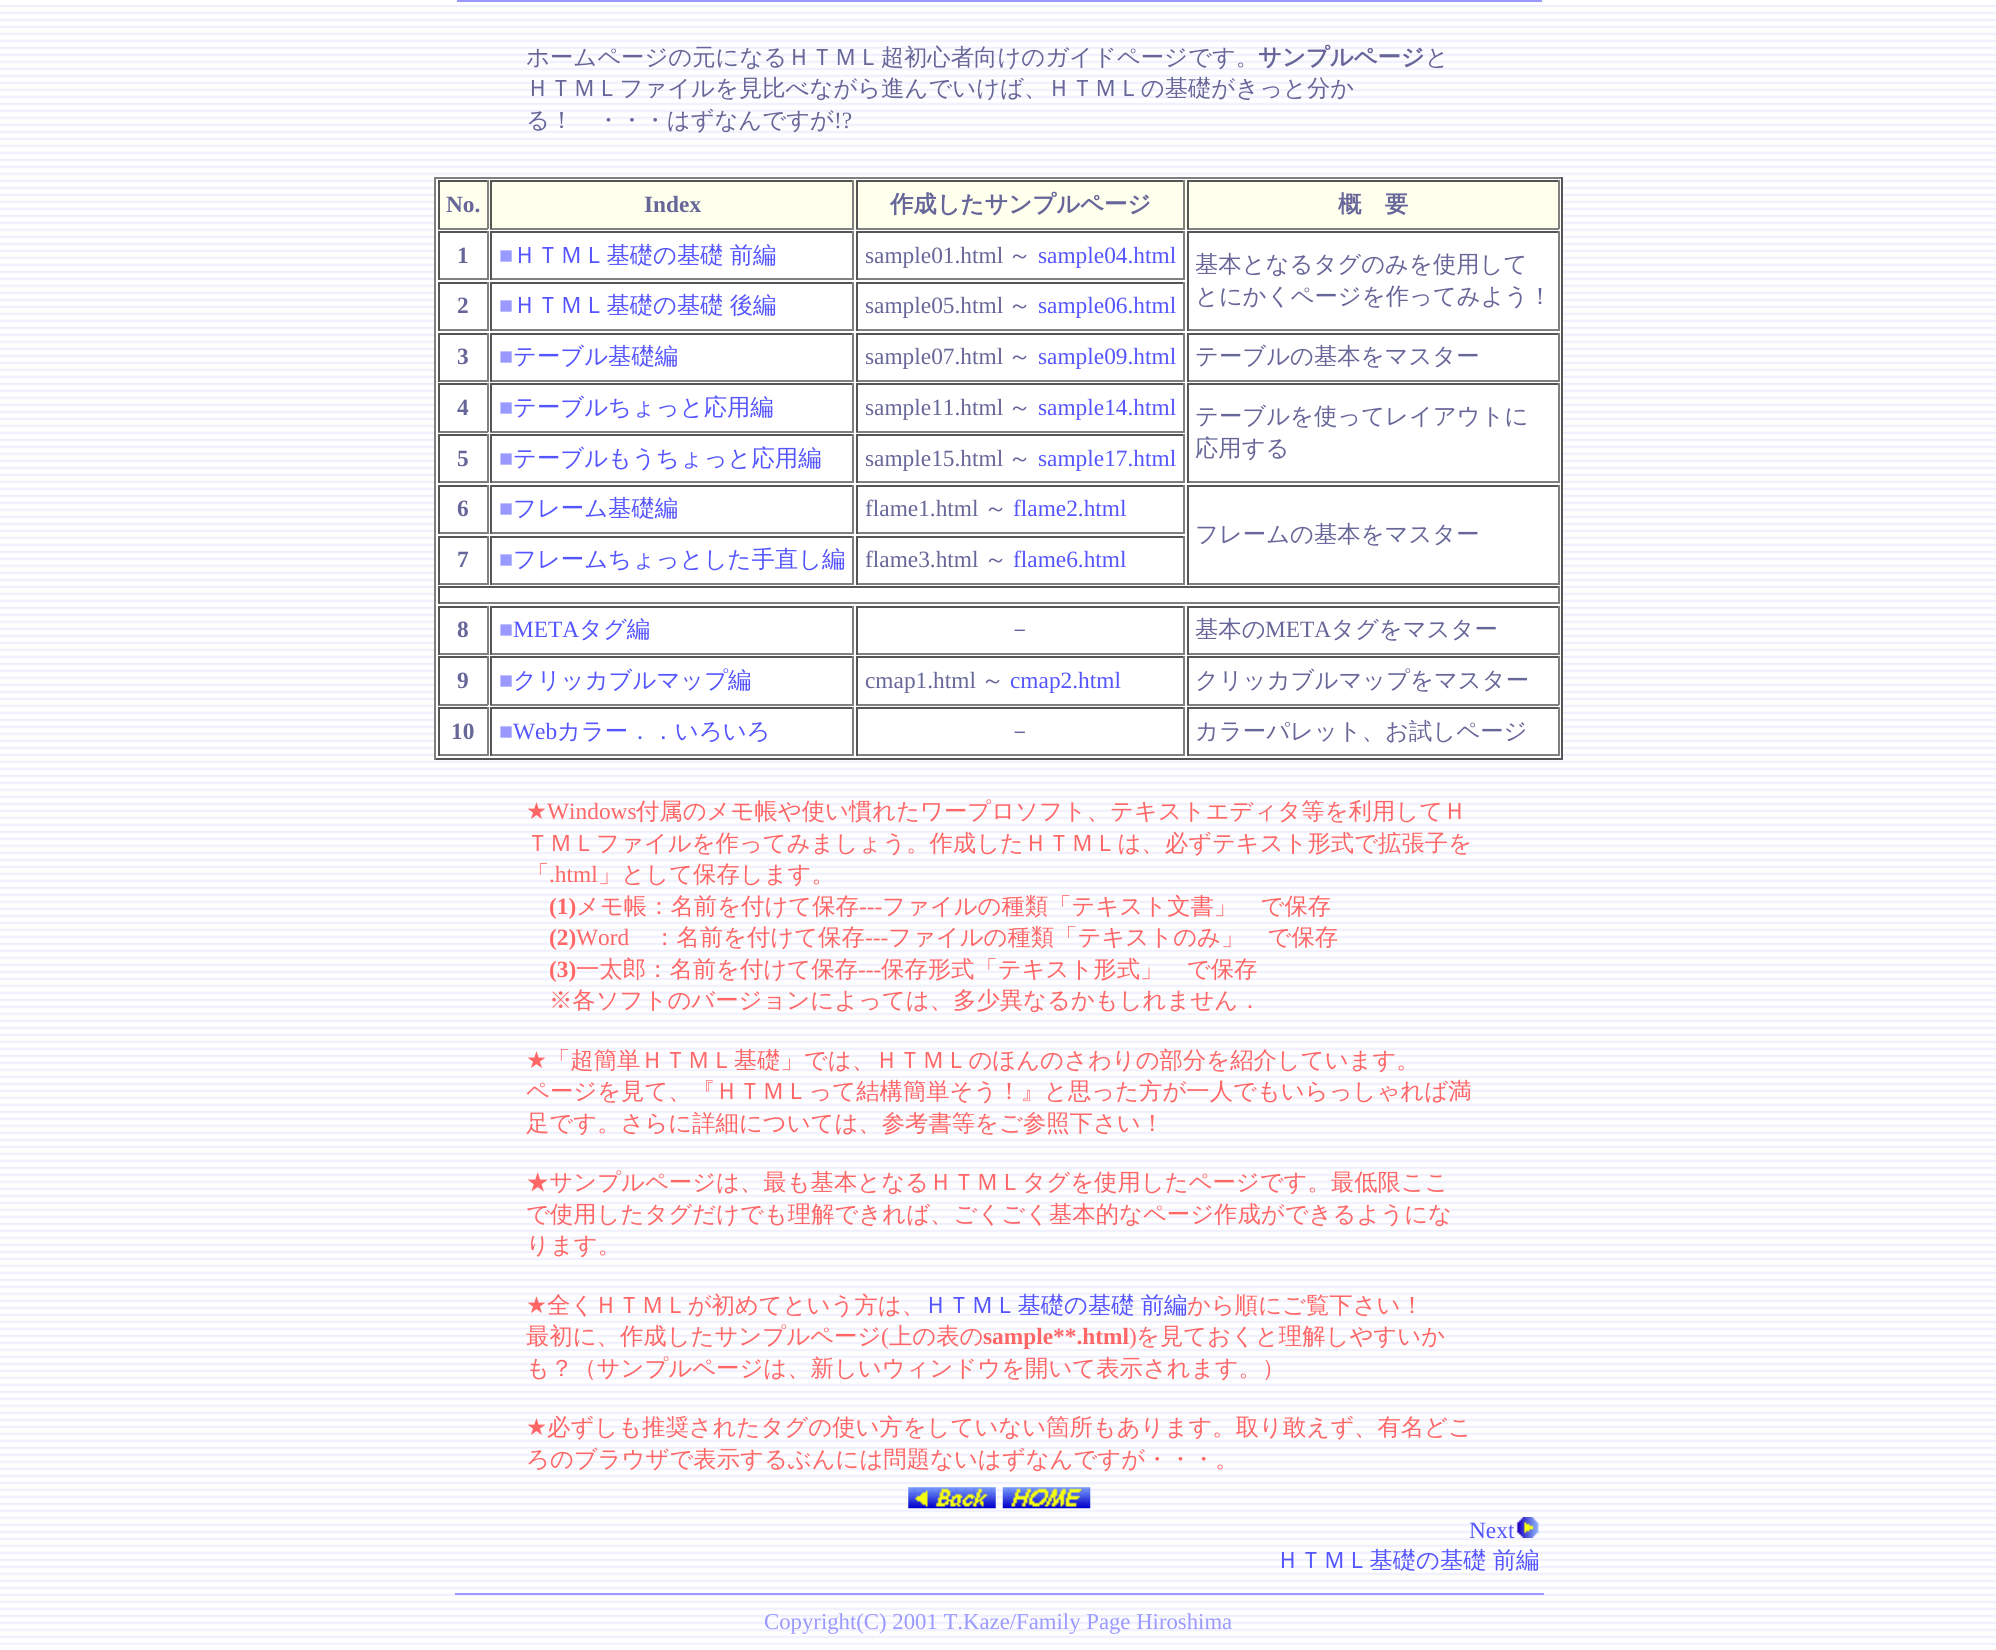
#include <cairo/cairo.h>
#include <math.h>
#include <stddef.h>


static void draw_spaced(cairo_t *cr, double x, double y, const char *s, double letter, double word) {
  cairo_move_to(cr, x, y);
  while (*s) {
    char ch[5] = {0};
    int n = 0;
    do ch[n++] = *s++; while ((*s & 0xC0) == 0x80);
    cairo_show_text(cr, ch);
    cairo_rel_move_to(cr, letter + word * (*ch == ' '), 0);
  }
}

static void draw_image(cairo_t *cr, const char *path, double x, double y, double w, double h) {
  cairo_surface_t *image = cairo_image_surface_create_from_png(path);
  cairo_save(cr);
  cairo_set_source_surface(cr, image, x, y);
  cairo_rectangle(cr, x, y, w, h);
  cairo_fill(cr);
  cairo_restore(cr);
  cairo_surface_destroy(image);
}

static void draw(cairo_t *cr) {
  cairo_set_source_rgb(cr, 1, 1, 1);
  cairo_paint(cr);
  draw_image(cr, "images/1.png", 0, 5, 1996, 1640);
  cairo_set_source_rgb(cr, 153 / 255.0, 153 / 255.0, 1);
  cairo_rectangle(cr, 457, 0, 1085, 2);
  cairo_fill(cr);
  cairo_set_source_rgb(cr, 1, 1, 1);
  cairo_rectangle(cr, 436, 179, 1125, 578);
  cairo_fill(cr);
  cairo_set_source_rgb(cr, 128 / 255.0, 128 / 255.0, 128 / 255.0);
  cairo_rectangle(cr, 434, 177, 1129, 2);
  cairo_fill(cr);
  cairo_set_source_rgb(cr, 85 / 255.0, 85 / 255.0, 85 / 255.0);
  cairo_rectangle(cr, 1561, 177, 2, 583);
  cairo_fill(cr);
  cairo_rectangle(cr, 434, 758, 1129, 2);
  cairo_fill(cr);
  cairo_set_source_rgb(cr, 128 / 255.0, 128 / 255.0, 128 / 255.0);
  cairo_rectangle(cr, 434, 177, 2, 583);
  cairo_fill(cr);
  cairo_set_source_rgb(cr, 1, 1, 238 / 255.0);
  cairo_rectangle(cr, 440, 180, 1118, 49);
  cairo_fill(cr);
  cairo_set_source_rgb(cr, 85 / 255.0, 85 / 255.0, 85 / 255.0);
  cairo_rectangle(cr, 438, 180, 50, 2);
  cairo_fill(cr);
  cairo_set_source_rgb(cr, 128 / 255.0, 128 / 255.0, 128 / 255.0);
  cairo_rectangle(cr, 487, 180, 2, 49);
  cairo_fill(cr);
  cairo_rectangle(cr, 438, 228, 50, 2);
  cairo_fill(cr);
  cairo_set_source_rgb(cr, 85 / 255.0, 85 / 255.0, 85 / 255.0);
  cairo_rectangle(cr, 438, 180, 2, 49);
  cairo_fill(cr);
  cairo_rectangle(cr, 490, 180, 364, 2);
  cairo_fill(cr);
  cairo_set_source_rgb(cr, 128 / 255.0, 128 / 255.0, 128 / 255.0);
  cairo_rectangle(cr, 852, 180, 2, 49);
  cairo_fill(cr);
  cairo_rectangle(cr, 490, 228, 364, 2);
  cairo_fill(cr);
  cairo_set_source_rgb(cr, 85 / 255.0, 85 / 255.0, 85 / 255.0);
  cairo_rectangle(cr, 490, 180, 2, 49);
  cairo_fill(cr);
  cairo_rectangle(cr, 856, 180, 329, 2);
  cairo_fill(cr);
  cairo_set_source_rgb(cr, 128 / 255.0, 128 / 255.0, 128 / 255.0);
  cairo_rectangle(cr, 1183, 180, 2, 49);
  cairo_fill(cr);
  cairo_rectangle(cr, 856, 228, 329, 2);
  cairo_fill(cr);
  cairo_set_source_rgb(cr, 85 / 255.0, 85 / 255.0, 85 / 255.0);
  cairo_rectangle(cr, 856, 180, 2, 49);
  cairo_fill(cr);
  cairo_rectangle(cr, 1187, 180, 372, 2);
  cairo_fill(cr);
  cairo_set_source_rgb(cr, 128 / 255.0, 128 / 255.0, 128 / 255.0);
  cairo_rectangle(cr, 1558, 180, 2, 49);
  cairo_fill(cr);
  cairo_rectangle(cr, 1187, 228, 372, 2);
  cairo_fill(cr);
  cairo_set_source_rgb(cr, 85 / 255.0, 85 / 255.0, 85 / 255.0);
  cairo_rectangle(cr, 1187, 180, 2, 49);
  cairo_fill(cr);
  cairo_rectangle(cr, 438, 231, 50, 2);
  cairo_fill(cr);
  cairo_set_source_rgb(cr, 128 / 255.0, 128 / 255.0, 128 / 255.0);
  cairo_rectangle(cr, 487, 231, 2, 49);
  cairo_fill(cr);
  cairo_rectangle(cr, 438, 278, 50, 2);
  cairo_fill(cr);
  cairo_set_source_rgb(cr, 85 / 255.0, 85 / 255.0, 85 / 255.0);
  cairo_rectangle(cr, 438, 231, 2, 49);
  cairo_fill(cr);
  cairo_rectangle(cr, 490, 231, 364, 2);
  cairo_fill(cr);
  cairo_set_source_rgb(cr, 128 / 255.0, 128 / 255.0, 128 / 255.0);
  cairo_rectangle(cr, 852, 231, 2, 49);
  cairo_fill(cr);
  cairo_rectangle(cr, 490, 278, 364, 2);
  cairo_fill(cr);
  cairo_set_source_rgb(cr, 85 / 255.0, 85 / 255.0, 85 / 255.0);
  cairo_rectangle(cr, 490, 231, 2, 49);
  cairo_fill(cr);
  cairo_rectangle(cr, 856, 231, 329, 2);
  cairo_fill(cr);
  cairo_set_source_rgb(cr, 128 / 255.0, 128 / 255.0, 128 / 255.0);
  cairo_rectangle(cr, 1183, 231, 2, 49);
  cairo_fill(cr);
  cairo_rectangle(cr, 856, 278, 329, 2);
  cairo_fill(cr);
  cairo_set_source_rgb(cr, 85 / 255.0, 85 / 255.0, 85 / 255.0);
  cairo_rectangle(cr, 856, 231, 2, 49);
  cairo_fill(cr);
  cairo_rectangle(cr, 1187, 231, 372, 2);
  cairo_fill(cr);
  cairo_set_source_rgb(cr, 128 / 255.0, 128 / 255.0, 128 / 255.0);
  cairo_rectangle(cr, 1558, 231, 2, 100);
  cairo_fill(cr);
  cairo_rectangle(cr, 1187, 329, 372, 2);
  cairo_fill(cr);
  cairo_set_source_rgb(cr, 85 / 255.0, 85 / 255.0, 85 / 255.0);
  cairo_rectangle(cr, 1187, 231, 2, 100);
  cairo_fill(cr);
  cairo_rectangle(cr, 438, 282, 50, 2);
  cairo_fill(cr);
  cairo_set_source_rgb(cr, 128 / 255.0, 128 / 255.0, 128 / 255.0);
  cairo_rectangle(cr, 487, 282, 2, 49);
  cairo_fill(cr);
  cairo_rectangle(cr, 438, 329, 50, 2);
  cairo_fill(cr);
  cairo_set_source_rgb(cr, 85 / 255.0, 85 / 255.0, 85 / 255.0);
  cairo_rectangle(cr, 438, 282, 2, 49);
  cairo_fill(cr);
  cairo_rectangle(cr, 490, 282, 364, 2);
  cairo_fill(cr);
  cairo_set_source_rgb(cr, 128 / 255.0, 128 / 255.0, 128 / 255.0);
  cairo_rectangle(cr, 852, 282, 2, 49);
  cairo_fill(cr);
  cairo_rectangle(cr, 490, 329, 364, 2);
  cairo_fill(cr);
  cairo_set_source_rgb(cr, 85 / 255.0, 85 / 255.0, 85 / 255.0);
  cairo_rectangle(cr, 490, 282, 2, 49);
  cairo_fill(cr);
  cairo_rectangle(cr, 856, 282, 329, 2);
  cairo_fill(cr);
  cairo_set_source_rgb(cr, 128 / 255.0, 128 / 255.0, 128 / 255.0);
  cairo_rectangle(cr, 1183, 282, 2, 49);
  cairo_fill(cr);
  cairo_rectangle(cr, 856, 329, 329, 2);
  cairo_fill(cr);
  cairo_set_source_rgb(cr, 85 / 255.0, 85 / 255.0, 85 / 255.0);
  cairo_rectangle(cr, 856, 282, 2, 49);
  cairo_fill(cr);
  cairo_rectangle(cr, 438, 333, 50, 2);
  cairo_fill(cr);
  cairo_set_source_rgb(cr, 128 / 255.0, 128 / 255.0, 128 / 255.0);
  cairo_rectangle(cr, 487, 333, 2, 49);
  cairo_fill(cr);
  cairo_rectangle(cr, 438, 380, 50, 2);
  cairo_fill(cr);
  cairo_set_source_rgb(cr, 85 / 255.0, 85 / 255.0, 85 / 255.0);
  cairo_rectangle(cr, 438, 333, 2, 49);
  cairo_fill(cr);
  cairo_rectangle(cr, 490, 333, 364, 2);
  cairo_fill(cr);
  cairo_set_source_rgb(cr, 128 / 255.0, 128 / 255.0, 128 / 255.0);
  cairo_rectangle(cr, 852, 333, 2, 49);
  cairo_fill(cr);
  cairo_rectangle(cr, 490, 380, 364, 2);
  cairo_fill(cr);
  cairo_set_source_rgb(cr, 85 / 255.0, 85 / 255.0, 85 / 255.0);
  cairo_rectangle(cr, 490, 333, 2, 49);
  cairo_fill(cr);
  cairo_rectangle(cr, 856, 333, 329, 2);
  cairo_fill(cr);
  cairo_set_source_rgb(cr, 128 / 255.0, 128 / 255.0, 128 / 255.0);
  cairo_rectangle(cr, 1183, 333, 2, 49);
  cairo_fill(cr);
  cairo_rectangle(cr, 856, 380, 329, 2);
  cairo_fill(cr);
  cairo_set_source_rgb(cr, 85 / 255.0, 85 / 255.0, 85 / 255.0);
  cairo_rectangle(cr, 856, 333, 2, 49);
  cairo_fill(cr);
  cairo_rectangle(cr, 1187, 333, 372, 2);
  cairo_fill(cr);
  cairo_set_source_rgb(cr, 128 / 255.0, 128 / 255.0, 128 / 255.0);
  cairo_rectangle(cr, 1558, 333, 2, 49);
  cairo_fill(cr);
  cairo_rectangle(cr, 1187, 380, 372, 2);
  cairo_fill(cr);
  cairo_set_source_rgb(cr, 85 / 255.0, 85 / 255.0, 85 / 255.0);
  cairo_rectangle(cr, 1187, 333, 2, 49);
  cairo_fill(cr);
  cairo_rectangle(cr, 438, 383, 50, 2);
  cairo_fill(cr);
  cairo_set_source_rgb(cr, 128 / 255.0, 128 / 255.0, 128 / 255.0);
  cairo_rectangle(cr, 487, 383, 2, 49);
  cairo_fill(cr);
  cairo_rectangle(cr, 438, 431, 50, 2);
  cairo_fill(cr);
  cairo_set_source_rgb(cr, 85 / 255.0, 85 / 255.0, 85 / 255.0);
  cairo_rectangle(cr, 438, 383, 2, 49);
  cairo_fill(cr);
  cairo_rectangle(cr, 490, 383, 364, 2);
  cairo_fill(cr);
  cairo_set_source_rgb(cr, 128 / 255.0, 128 / 255.0, 128 / 255.0);
  cairo_rectangle(cr, 852, 383, 2, 49);
  cairo_fill(cr);
  cairo_rectangle(cr, 490, 431, 364, 2);
  cairo_fill(cr);
  cairo_set_source_rgb(cr, 85 / 255.0, 85 / 255.0, 85 / 255.0);
  cairo_rectangle(cr, 490, 383, 2, 49);
  cairo_fill(cr);
  cairo_rectangle(cr, 856, 383, 329, 2);
  cairo_fill(cr);
  cairo_set_source_rgb(cr, 128 / 255.0, 128 / 255.0, 128 / 255.0);
  cairo_rectangle(cr, 1183, 383, 2, 49);
  cairo_fill(cr);
  cairo_rectangle(cr, 856, 431, 329, 2);
  cairo_fill(cr);
  cairo_set_source_rgb(cr, 85 / 255.0, 85 / 255.0, 85 / 255.0);
  cairo_rectangle(cr, 856, 383, 2, 49);
  cairo_fill(cr);
  cairo_rectangle(cr, 1187, 383, 372, 2);
  cairo_fill(cr);
  cairo_set_source_rgb(cr, 128 / 255.0, 128 / 255.0, 128 / 255.0);
  cairo_rectangle(cr, 1558, 383, 2, 100);
  cairo_fill(cr);
  cairo_rectangle(cr, 1187, 481, 372, 2);
  cairo_fill(cr);
  cairo_set_source_rgb(cr, 85 / 255.0, 85 / 255.0, 85 / 255.0);
  cairo_rectangle(cr, 1187, 383, 2, 100);
  cairo_fill(cr);
  cairo_rectangle(cr, 438, 434, 50, 2);
  cairo_fill(cr);
  cairo_set_source_rgb(cr, 128 / 255.0, 128 / 255.0, 128 / 255.0);
  cairo_rectangle(cr, 487, 434, 2, 49);
  cairo_fill(cr);
  cairo_rectangle(cr, 438, 481, 50, 2);
  cairo_fill(cr);
  cairo_set_source_rgb(cr, 85 / 255.0, 85 / 255.0, 85 / 255.0);
  cairo_rectangle(cr, 438, 434, 2, 49);
  cairo_fill(cr);
  cairo_rectangle(cr, 490, 434, 364, 2);
  cairo_fill(cr);
  cairo_set_source_rgb(cr, 128 / 255.0, 128 / 255.0, 128 / 255.0);
  cairo_rectangle(cr, 852, 434, 2, 49);
  cairo_fill(cr);
  cairo_rectangle(cr, 490, 481, 364, 2);
  cairo_fill(cr);
  cairo_set_source_rgb(cr, 85 / 255.0, 85 / 255.0, 85 / 255.0);
  cairo_rectangle(cr, 490, 434, 2, 49);
  cairo_fill(cr);
  cairo_rectangle(cr, 856, 434, 329, 2);
  cairo_fill(cr);
  cairo_set_source_rgb(cr, 128 / 255.0, 128 / 255.0, 128 / 255.0);
  cairo_rectangle(cr, 1183, 434, 2, 49);
  cairo_fill(cr);
  cairo_rectangle(cr, 856, 481, 329, 2);
  cairo_fill(cr);
  cairo_set_source_rgb(cr, 85 / 255.0, 85 / 255.0, 85 / 255.0);
  cairo_rectangle(cr, 856, 434, 2, 49);
  cairo_fill(cr);
  cairo_rectangle(cr, 438, 485, 50, 2);
  cairo_fill(cr);
  cairo_set_source_rgb(cr, 128 / 255.0, 128 / 255.0, 128 / 255.0);
  cairo_rectangle(cr, 487, 485, 2, 49);
  cairo_fill(cr);
  cairo_rectangle(cr, 438, 532, 50, 2);
  cairo_fill(cr);
  cairo_set_source_rgb(cr, 85 / 255.0, 85 / 255.0, 85 / 255.0);
  cairo_rectangle(cr, 438, 485, 2, 49);
  cairo_fill(cr);
  cairo_rectangle(cr, 490, 485, 364, 2);
  cairo_fill(cr);
  cairo_set_source_rgb(cr, 128 / 255.0, 128 / 255.0, 128 / 255.0);
  cairo_rectangle(cr, 852, 485, 2, 49);
  cairo_fill(cr);
  cairo_rectangle(cr, 490, 532, 364, 2);
  cairo_fill(cr);
  cairo_set_source_rgb(cr, 85 / 255.0, 85 / 255.0, 85 / 255.0);
  cairo_rectangle(cr, 490, 485, 2, 49);
  cairo_fill(cr);
  cairo_rectangle(cr, 856, 485, 329, 2);
  cairo_fill(cr);
  cairo_set_source_rgb(cr, 128 / 255.0, 128 / 255.0, 128 / 255.0);
  cairo_rectangle(cr, 1183, 485, 2, 49);
  cairo_fill(cr);
  cairo_rectangle(cr, 856, 532, 329, 2);
  cairo_fill(cr);
  cairo_set_source_rgb(cr, 85 / 255.0, 85 / 255.0, 85 / 255.0);
  cairo_rectangle(cr, 856, 485, 2, 49);
  cairo_fill(cr);
  cairo_rectangle(cr, 1187, 485, 372, 2);
  cairo_fill(cr);
  cairo_set_source_rgb(cr, 128 / 255.0, 128 / 255.0, 128 / 255.0);
  cairo_rectangle(cr, 1558, 485, 2, 100);
  cairo_fill(cr);
  cairo_rectangle(cr, 1187, 583, 372, 2);
  cairo_fill(cr);
  cairo_set_source_rgb(cr, 85 / 255.0, 85 / 255.0, 85 / 255.0);
  cairo_rectangle(cr, 1187, 485, 2, 100);
  cairo_fill(cr);
  cairo_rectangle(cr, 438, 536, 50, 2);
  cairo_fill(cr);
  cairo_set_source_rgb(cr, 128 / 255.0, 128 / 255.0, 128 / 255.0);
  cairo_rectangle(cr, 487, 536, 2, 49);
  cairo_fill(cr);
  cairo_rectangle(cr, 438, 583, 50, 2);
  cairo_fill(cr);
  cairo_set_source_rgb(cr, 85 / 255.0, 85 / 255.0, 85 / 255.0);
  cairo_rectangle(cr, 438, 536, 2, 49);
  cairo_fill(cr);
  cairo_rectangle(cr, 490, 536, 364, 2);
  cairo_fill(cr);
  cairo_set_source_rgb(cr, 128 / 255.0, 128 / 255.0, 128 / 255.0);
  cairo_rectangle(cr, 852, 536, 2, 49);
  cairo_fill(cr);
  cairo_rectangle(cr, 490, 583, 364, 2);
  cairo_fill(cr);
  cairo_set_source_rgb(cr, 85 / 255.0, 85 / 255.0, 85 / 255.0);
  cairo_rectangle(cr, 490, 536, 2, 49);
  cairo_fill(cr);
  cairo_rectangle(cr, 856, 536, 329, 2);
  cairo_fill(cr);
  cairo_set_source_rgb(cr, 128 / 255.0, 128 / 255.0, 128 / 255.0);
  cairo_rectangle(cr, 1183, 536, 2, 49);
  cairo_fill(cr);
  cairo_rectangle(cr, 856, 583, 329, 2);
  cairo_fill(cr);
  cairo_set_source_rgb(cr, 85 / 255.0, 85 / 255.0, 85 / 255.0);
  cairo_rectangle(cr, 856, 536, 2, 49);
  cairo_fill(cr);
  cairo_rectangle(cr, 438, 586, 1121, 2);
  cairo_fill(cr);
  cairo_set_source_rgb(cr, 128 / 255.0, 128 / 255.0, 128 / 255.0);
  cairo_rectangle(cr, 1558, 586, 2, 18);
  cairo_fill(cr);
  cairo_rectangle(cr, 438, 602, 1121, 2);
  cairo_fill(cr);
  cairo_set_source_rgb(cr, 85 / 255.0, 85 / 255.0, 85 / 255.0);
  cairo_rectangle(cr, 438, 586, 2, 18);
  cairo_fill(cr);
  cairo_rectangle(cr, 438, 606, 50, 2);
  cairo_fill(cr);
  cairo_set_source_rgb(cr, 128 / 255.0, 128 / 255.0, 128 / 255.0);
  cairo_rectangle(cr, 487, 606, 2, 49);
  cairo_fill(cr);
  cairo_rectangle(cr, 438, 653, 50, 2);
  cairo_fill(cr);
  cairo_set_source_rgb(cr, 85 / 255.0, 85 / 255.0, 85 / 255.0);
  cairo_rectangle(cr, 438, 606, 2, 49);
  cairo_fill(cr);
  cairo_rectangle(cr, 490, 606, 364, 2);
  cairo_fill(cr);
  cairo_set_source_rgb(cr, 128 / 255.0, 128 / 255.0, 128 / 255.0);
  cairo_rectangle(cr, 852, 606, 2, 49);
  cairo_fill(cr);
  cairo_rectangle(cr, 490, 653, 364, 2);
  cairo_fill(cr);
  cairo_set_source_rgb(cr, 85 / 255.0, 85 / 255.0, 85 / 255.0);
  cairo_rectangle(cr, 490, 606, 2, 49);
  cairo_fill(cr);
  cairo_rectangle(cr, 856, 606, 329, 2);
  cairo_fill(cr);
  cairo_set_source_rgb(cr, 128 / 255.0, 128 / 255.0, 128 / 255.0);
  cairo_rectangle(cr, 1183, 606, 2, 49);
  cairo_fill(cr);
  cairo_rectangle(cr, 856, 653, 329, 2);
  cairo_fill(cr);
  cairo_set_source_rgb(cr, 85 / 255.0, 85 / 255.0, 85 / 255.0);
  cairo_rectangle(cr, 856, 606, 2, 49);
  cairo_fill(cr);
  cairo_rectangle(cr, 1187, 606, 372, 2);
  cairo_fill(cr);
  cairo_set_source_rgb(cr, 128 / 255.0, 128 / 255.0, 128 / 255.0);
  cairo_rectangle(cr, 1558, 606, 2, 49);
  cairo_fill(cr);
  cairo_rectangle(cr, 1187, 653, 372, 2);
  cairo_fill(cr);
  cairo_set_source_rgb(cr, 85 / 255.0, 85 / 255.0, 85 / 255.0);
  cairo_rectangle(cr, 1187, 606, 2, 49);
  cairo_fill(cr);
  cairo_rectangle(cr, 438, 656, 50, 2);
  cairo_fill(cr);
  cairo_set_source_rgb(cr, 128 / 255.0, 128 / 255.0, 128 / 255.0);
  cairo_rectangle(cr, 487, 656, 2, 49);
  cairo_fill(cr);
  cairo_rectangle(cr, 438, 704, 50, 2);
  cairo_fill(cr);
  cairo_set_source_rgb(cr, 85 / 255.0, 85 / 255.0, 85 / 255.0);
  cairo_rectangle(cr, 438, 656, 2, 49);
  cairo_fill(cr);
  cairo_rectangle(cr, 490, 656, 364, 2);
  cairo_fill(cr);
  cairo_set_source_rgb(cr, 128 / 255.0, 128 / 255.0, 128 / 255.0);
  cairo_rectangle(cr, 852, 656, 2, 49);
  cairo_fill(cr);
  cairo_rectangle(cr, 490, 704, 364, 2);
  cairo_fill(cr);
  cairo_set_source_rgb(cr, 85 / 255.0, 85 / 255.0, 85 / 255.0);
  cairo_rectangle(cr, 490, 656, 2, 49);
  cairo_fill(cr);
  cairo_rectangle(cr, 856, 656, 329, 2);
  cairo_fill(cr);
  cairo_set_source_rgb(cr, 128 / 255.0, 128 / 255.0, 128 / 255.0);
  cairo_rectangle(cr, 1183, 656, 2, 49);
  cairo_fill(cr);
  cairo_rectangle(cr, 856, 704, 329, 2);
  cairo_fill(cr);
  cairo_set_source_rgb(cr, 85 / 255.0, 85 / 255.0, 85 / 255.0);
  cairo_rectangle(cr, 856, 656, 2, 49);
  cairo_fill(cr);
  cairo_rectangle(cr, 1187, 656, 372, 2);
  cairo_fill(cr);
  cairo_set_source_rgb(cr, 128 / 255.0, 128 / 255.0, 128 / 255.0);
  cairo_rectangle(cr, 1558, 656, 2, 49);
  cairo_fill(cr);
  cairo_rectangle(cr, 1187, 704, 372, 2);
  cairo_fill(cr);
  cairo_set_source_rgb(cr, 85 / 255.0, 85 / 255.0, 85 / 255.0);
  cairo_rectangle(cr, 1187, 656, 2, 49);
  cairo_fill(cr);
  cairo_rectangle(cr, 438, 707, 50, 2);
  cairo_fill(cr);
  cairo_set_source_rgb(cr, 128 / 255.0, 128 / 255.0, 128 / 255.0);
  cairo_rectangle(cr, 487, 707, 2, 49);
  cairo_fill(cr);
  cairo_rectangle(cr, 438, 754, 50, 2);
  cairo_fill(cr);
  cairo_set_source_rgb(cr, 85 / 255.0, 85 / 255.0, 85 / 255.0);
  cairo_rectangle(cr, 438, 707, 2, 49);
  cairo_fill(cr);
  cairo_rectangle(cr, 490, 707, 364, 2);
  cairo_fill(cr);
  cairo_set_source_rgb(cr, 128 / 255.0, 128 / 255.0, 128 / 255.0);
  cairo_rectangle(cr, 852, 707, 2, 49);
  cairo_fill(cr);
  cairo_rectangle(cr, 490, 754, 364, 2);
  cairo_fill(cr);
  cairo_set_source_rgb(cr, 85 / 255.0, 85 / 255.0, 85 / 255.0);
  cairo_rectangle(cr, 490, 707, 2, 49);
  cairo_fill(cr);
  cairo_rectangle(cr, 856, 707, 329, 2);
  cairo_fill(cr);
  cairo_set_source_rgb(cr, 128 / 255.0, 128 / 255.0, 128 / 255.0);
  cairo_rectangle(cr, 1183, 707, 2, 49);
  cairo_fill(cr);
  cairo_rectangle(cr, 856, 754, 329, 2);
  cairo_fill(cr);
  cairo_set_source_rgb(cr, 85 / 255.0, 85 / 255.0, 85 / 255.0);
  cairo_rectangle(cr, 856, 707, 2, 49);
  cairo_fill(cr);
  cairo_rectangle(cr, 1187, 707, 372, 2);
  cairo_fill(cr);
  cairo_set_source_rgb(cr, 128 / 255.0, 128 / 255.0, 128 / 255.0);
  cairo_rectangle(cr, 1558, 707, 2, 49);
  cairo_fill(cr);
  cairo_rectangle(cr, 1187, 754, 372, 2);
  cairo_fill(cr);
  cairo_set_source_rgb(cr, 85 / 255.0, 85 / 255.0, 85 / 255.0);
  cairo_rectangle(cr, 1187, 707, 2, 49);
  cairo_fill(cr);
  draw_image(cr, "images/2.png", 908, 1487, 88, 22);
  draw_image(cr, "images/3.png", 1002, 1487, 89, 22);
  draw_image(cr, "images/4.png", 1516, 1517, 23, 21);
  cairo_set_source_rgb(cr, 153 / 255.0, 153 / 255.0, 1);
  cairo_rectangle(cr, 455, 1593, 1089, 2);
  cairo_fill(cr);
  cairo_select_font_face(cr, "WenQuanYi Zen Hei Medium", CAIRO_FONT_SLANT_NORMAL, CAIRO_FONT_WEIGHT_NORMAL);
  cairo_set_font_size(cr, 23.35);
  cairo_set_source_rgb(cr, 102 / 255.0, 102 / 255.0, 153 / 255.0);
  cairo_move_to(cr, 526, 65);
  cairo_show_text(cr, "ホームページの元になるＨＴＭＬ超初心者向けのガイドページです。");
  cairo_select_font_face(cr, "WenQuanYi Zen Hei", CAIRO_FONT_SLANT_NORMAL, CAIRO_FONT_WEIGHT_BOLD);
  cairo_move_to(cr, 1258, 65);
  cairo_show_text(cr, "サンプルページ");
  cairo_select_font_face(cr, "WenQuanYi Zen Hei Medium", CAIRO_FONT_SLANT_NORMAL, CAIRO_FONT_WEIGHT_NORMAL);
  cairo_move_to(cr, 1425, 65);
  cairo_show_text(cr, "と");
  cairo_move_to(cr, 526, 96);
  cairo_show_text(cr, "ＨＴＭＬファイルを見比べながら進んでいけば、ＨＴＭＬの基礎がきっと分か");
  cairo_move_to(cr, 526, 128);
  cairo_show_text(cr, "る！　・・・はずなんですが");
  cairo_select_font_face(cr, "Liberation Serif", CAIRO_FONT_SLANT_NORMAL, CAIRO_FONT_WEIGHT_NORMAL);
  cairo_move_to(cr, 834, 128);
  cairo_show_text(cr, "!?");
  cairo_select_font_face(cr, "Liberation Serif", CAIRO_FONT_SLANT_NORMAL, CAIRO_FONT_WEIGHT_BOLD);
  cairo_move_to(cr, 446, 212);
  cairo_show_text(cr, "No.");
  cairo_move_to(cr, 644, 212);
  cairo_show_text(cr, "Index");
  cairo_select_font_face(cr, "WenQuanYi Zen Hei", CAIRO_FONT_SLANT_NORMAL, CAIRO_FONT_WEIGHT_BOLD);
  cairo_move_to(cr, 890, 212);
  cairo_show_text(cr, "作成したサンプルページ");
  cairo_move_to(cr, 1338, 212);
  cairo_show_text(cr, "概　要");
  cairo_select_font_face(cr, "Liberation Serif", CAIRO_FONT_SLANT_NORMAL, CAIRO_FONT_WEIGHT_BOLD);
  cairo_move_to(cr, 457, 263);
  cairo_show_text(cr, "1");
  cairo_select_font_face(cr, "Liberation Serif", CAIRO_FONT_SLANT_NORMAL, CAIRO_FONT_WEIGHT_NORMAL);
  cairo_set_source_rgb(cr, 153 / 255.0, 153 / 255.0, 1);
  cairo_move_to(cr, 499, 263);
  cairo_show_text(cr, "■");
  cairo_select_font_face(cr, "WenQuanYi Zen Hei Medium", CAIRO_FONT_SLANT_NORMAL, CAIRO_FONT_WEIGHT_NORMAL);
  cairo_set_source_rgb(cr, 85 / 255.0, 85 / 255.0, 1);
  draw_spaced(cr, 513, 263, "ＨＴＭＬ基礎の基礎 前編", 0, -1);
  cairo_select_font_face(cr, "Liberation Serif", CAIRO_FONT_SLANT_NORMAL, CAIRO_FONT_WEIGHT_NORMAL);
  cairo_set_source_rgb(cr, 102 / 255.0, 102 / 255.0, 153 / 255.0);
  cairo_move_to(cr, 865, 263);
  cairo_show_text(cr, "sample01.html");
  cairo_select_font_face(cr, "WenQuanYi Zen Hei Medium", CAIRO_FONT_SLANT_NORMAL, CAIRO_FONT_WEIGHT_NORMAL);
  cairo_move_to(cr, 1008, 263);
  cairo_show_text(cr, "～");
  cairo_select_font_face(cr, "Liberation Serif", CAIRO_FONT_SLANT_NORMAL, CAIRO_FONT_WEIGHT_NORMAL);
  cairo_set_source_rgb(cr, 85 / 255.0, 85 / 255.0, 1);
  cairo_move_to(cr, 1038, 263);
  cairo_show_text(cr, "sample04.html");
  cairo_select_font_face(cr, "WenQuanYi Zen Hei Medium", CAIRO_FONT_SLANT_NORMAL, CAIRO_FONT_WEIGHT_NORMAL);
  cairo_set_source_rgb(cr, 102 / 255.0, 102 / 255.0, 153 / 255.0);
  cairo_move_to(cr, 1195, 272);
  cairo_show_text(cr, "基本となるタグのみを使用して");
  cairo_move_to(cr, 1195, 304);
  cairo_show_text(cr, "とにかくページを作ってみよう！");
  cairo_select_font_face(cr, "Liberation Serif", CAIRO_FONT_SLANT_NORMAL, CAIRO_FONT_WEIGHT_BOLD);
  cairo_move_to(cr, 457, 313);
  cairo_show_text(cr, "2");
  cairo_select_font_face(cr, "Liberation Serif", CAIRO_FONT_SLANT_NORMAL, CAIRO_FONT_WEIGHT_NORMAL);
  cairo_set_source_rgb(cr, 153 / 255.0, 153 / 255.0, 1);
  cairo_move_to(cr, 499, 313);
  cairo_show_text(cr, "■");
  cairo_select_font_face(cr, "WenQuanYi Zen Hei Medium", CAIRO_FONT_SLANT_NORMAL, CAIRO_FONT_WEIGHT_NORMAL);
  cairo_set_source_rgb(cr, 85 / 255.0, 85 / 255.0, 1);
  draw_spaced(cr, 513, 313, "ＨＴＭＬ基礎の基礎 後編", 0, -1);
  cairo_select_font_face(cr, "Liberation Serif", CAIRO_FONT_SLANT_NORMAL, CAIRO_FONT_WEIGHT_NORMAL);
  cairo_set_source_rgb(cr, 102 / 255.0, 102 / 255.0, 153 / 255.0);
  cairo_move_to(cr, 865, 313);
  cairo_show_text(cr, "sample05.html");
  cairo_select_font_face(cr, "WenQuanYi Zen Hei Medium", CAIRO_FONT_SLANT_NORMAL, CAIRO_FONT_WEIGHT_NORMAL);
  cairo_move_to(cr, 1008, 313);
  cairo_show_text(cr, "～");
  cairo_select_font_face(cr, "Liberation Serif", CAIRO_FONT_SLANT_NORMAL, CAIRO_FONT_WEIGHT_NORMAL);
  cairo_set_source_rgb(cr, 85 / 255.0, 85 / 255.0, 1);
  cairo_move_to(cr, 1038, 313);
  cairo_show_text(cr, "sample06.html");
  cairo_select_font_face(cr, "Liberation Serif", CAIRO_FONT_SLANT_NORMAL, CAIRO_FONT_WEIGHT_BOLD);
  cairo_set_source_rgb(cr, 102 / 255.0, 102 / 255.0, 153 / 255.0);
  cairo_move_to(cr, 457, 364);
  cairo_show_text(cr, "3");
  cairo_select_font_face(cr, "Liberation Serif", CAIRO_FONT_SLANT_NORMAL, CAIRO_FONT_WEIGHT_NORMAL);
  cairo_set_source_rgb(cr, 153 / 255.0, 153 / 255.0, 1);
  cairo_move_to(cr, 499, 364);
  cairo_show_text(cr, "■");
  cairo_select_font_face(cr, "WenQuanYi Zen Hei Medium", CAIRO_FONT_SLANT_NORMAL, CAIRO_FONT_WEIGHT_NORMAL);
  cairo_set_source_rgb(cr, 85 / 255.0, 85 / 255.0, 1);
  cairo_move_to(cr, 513, 364);
  cairo_show_text(cr, "テーブル基礎編");
  cairo_select_font_face(cr, "Liberation Serif", CAIRO_FONT_SLANT_NORMAL, CAIRO_FONT_WEIGHT_NORMAL);
  cairo_set_source_rgb(cr, 102 / 255.0, 102 / 255.0, 153 / 255.0);
  cairo_move_to(cr, 865, 364);
  cairo_show_text(cr, "sample07.html");
  cairo_select_font_face(cr, "WenQuanYi Zen Hei Medium", CAIRO_FONT_SLANT_NORMAL, CAIRO_FONT_WEIGHT_NORMAL);
  cairo_move_to(cr, 1008, 364);
  cairo_show_text(cr, "～");
  cairo_select_font_face(cr, "Liberation Serif", CAIRO_FONT_SLANT_NORMAL, CAIRO_FONT_WEIGHT_NORMAL);
  cairo_set_source_rgb(cr, 85 / 255.0, 85 / 255.0, 1);
  cairo_move_to(cr, 1038, 364);
  cairo_show_text(cr, "sample09.html");
  cairo_select_font_face(cr, "WenQuanYi Zen Hei Medium", CAIRO_FONT_SLANT_NORMAL, CAIRO_FONT_WEIGHT_NORMAL);
  cairo_set_source_rgb(cr, 102 / 255.0, 102 / 255.0, 153 / 255.0);
  cairo_move_to(cr, 1195, 364);
  cairo_show_text(cr, "テーブルの基本をマスター");
  cairo_select_font_face(cr, "Liberation Serif", CAIRO_FONT_SLANT_NORMAL, CAIRO_FONT_WEIGHT_BOLD);
  cairo_move_to(cr, 457, 415);
  cairo_show_text(cr, "4");
  cairo_select_font_face(cr, "Liberation Serif", CAIRO_FONT_SLANT_NORMAL, CAIRO_FONT_WEIGHT_NORMAL);
  cairo_set_source_rgb(cr, 153 / 255.0, 153 / 255.0, 1);
  cairo_move_to(cr, 499, 415);
  cairo_show_text(cr, "■");
  cairo_select_font_face(cr, "WenQuanYi Zen Hei Medium", CAIRO_FONT_SLANT_NORMAL, CAIRO_FONT_WEIGHT_NORMAL);
  cairo_set_source_rgb(cr, 85 / 255.0, 85 / 255.0, 1);
  cairo_move_to(cr, 513, 415);
  cairo_show_text(cr, "テーブルちょっと応用編");
  cairo_select_font_face(cr, "Liberation Serif", CAIRO_FONT_SLANT_NORMAL, CAIRO_FONT_WEIGHT_NORMAL);
  cairo_set_source_rgb(cr, 102 / 255.0, 102 / 255.0, 153 / 255.0);
  cairo_move_to(cr, 865, 415);
  cairo_show_text(cr, "sample11.html");
  cairo_select_font_face(cr, "WenQuanYi Zen Hei Medium", CAIRO_FONT_SLANT_NORMAL, CAIRO_FONT_WEIGHT_NORMAL);
  cairo_move_to(cr, 1008, 415);
  cairo_show_text(cr, "～");
  cairo_select_font_face(cr, "Liberation Serif", CAIRO_FONT_SLANT_NORMAL, CAIRO_FONT_WEIGHT_NORMAL);
  cairo_set_source_rgb(cr, 85 / 255.0, 85 / 255.0, 1);
  cairo_move_to(cr, 1038, 415);
  cairo_show_text(cr, "sample14.html");
  cairo_select_font_face(cr, "WenQuanYi Zen Hei Medium", CAIRO_FONT_SLANT_NORMAL, CAIRO_FONT_WEIGHT_NORMAL);
  cairo_set_source_rgb(cr, 102 / 255.0, 102 / 255.0, 153 / 255.0);
  cairo_move_to(cr, 1195, 424);
  cairo_show_text(cr, "テーブルを使ってレイアウトに");
  cairo_move_to(cr, 1195, 456);
  cairo_show_text(cr, "応用する");
  cairo_select_font_face(cr, "Liberation Serif", CAIRO_FONT_SLANT_NORMAL, CAIRO_FONT_WEIGHT_BOLD);
  cairo_move_to(cr, 457, 466);
  cairo_show_text(cr, "5");
  cairo_select_font_face(cr, "Liberation Serif", CAIRO_FONT_SLANT_NORMAL, CAIRO_FONT_WEIGHT_NORMAL);
  cairo_set_source_rgb(cr, 153 / 255.0, 153 / 255.0, 1);
  cairo_move_to(cr, 499, 466);
  cairo_show_text(cr, "■");
  cairo_select_font_face(cr, "WenQuanYi Zen Hei Medium", CAIRO_FONT_SLANT_NORMAL, CAIRO_FONT_WEIGHT_NORMAL);
  cairo_set_source_rgb(cr, 85 / 255.0, 85 / 255.0, 1);
  cairo_move_to(cr, 513, 466);
  cairo_show_text(cr, "テーブルもうちょっと応用編");
  cairo_select_font_face(cr, "Liberation Serif", CAIRO_FONT_SLANT_NORMAL, CAIRO_FONT_WEIGHT_NORMAL);
  cairo_set_source_rgb(cr, 102 / 255.0, 102 / 255.0, 153 / 255.0);
  cairo_move_to(cr, 865, 466);
  cairo_show_text(cr, "sample15.html");
  cairo_select_font_face(cr, "WenQuanYi Zen Hei Medium", CAIRO_FONT_SLANT_NORMAL, CAIRO_FONT_WEIGHT_NORMAL);
  cairo_move_to(cr, 1008, 466);
  cairo_show_text(cr, "～");
  cairo_select_font_face(cr, "Liberation Serif", CAIRO_FONT_SLANT_NORMAL, CAIRO_FONT_WEIGHT_NORMAL);
  cairo_set_source_rgb(cr, 85 / 255.0, 85 / 255.0, 1);
  cairo_move_to(cr, 1038, 466);
  cairo_show_text(cr, "sample17.html");
  cairo_select_font_face(cr, "Liberation Serif", CAIRO_FONT_SLANT_NORMAL, CAIRO_FONT_WEIGHT_BOLD);
  cairo_set_source_rgb(cr, 102 / 255.0, 102 / 255.0, 153 / 255.0);
  cairo_move_to(cr, 457, 516);
  cairo_show_text(cr, "6");
  cairo_select_font_face(cr, "Liberation Serif", CAIRO_FONT_SLANT_NORMAL, CAIRO_FONT_WEIGHT_NORMAL);
  cairo_set_source_rgb(cr, 153 / 255.0, 153 / 255.0, 1);
  cairo_move_to(cr, 499, 516);
  cairo_show_text(cr, "■");
  cairo_select_font_face(cr, "WenQuanYi Zen Hei Medium", CAIRO_FONT_SLANT_NORMAL, CAIRO_FONT_WEIGHT_NORMAL);
  cairo_set_source_rgb(cr, 85 / 255.0, 85 / 255.0, 1);
  cairo_move_to(cr, 513, 516);
  cairo_show_text(cr, "フレーム基礎編");
  cairo_select_font_face(cr, "Liberation Serif", CAIRO_FONT_SLANT_NORMAL, CAIRO_FONT_WEIGHT_NORMAL);
  cairo_set_source_rgb(cr, 102 / 255.0, 102 / 255.0, 153 / 255.0);
  cairo_move_to(cr, 865, 516);
  cairo_show_text(cr, "flame1.html");
  cairo_select_font_face(cr, "WenQuanYi Zen Hei Medium", CAIRO_FONT_SLANT_NORMAL, CAIRO_FONT_WEIGHT_NORMAL);
  cairo_move_to(cr, 984, 516);
  cairo_show_text(cr, "～");
  cairo_select_font_face(cr, "Liberation Serif", CAIRO_FONT_SLANT_NORMAL, CAIRO_FONT_WEIGHT_NORMAL);
  cairo_set_source_rgb(cr, 85 / 255.0, 85 / 255.0, 1);
  cairo_move_to(cr, 1013, 516);
  cairo_show_text(cr, "flame2.html");
  cairo_select_font_face(cr, "WenQuanYi Zen Hei Medium", CAIRO_FONT_SLANT_NORMAL, CAIRO_FONT_WEIGHT_NORMAL);
  cairo_set_source_rgb(cr, 102 / 255.0, 102 / 255.0, 153 / 255.0);
  cairo_move_to(cr, 1195, 542);
  cairo_show_text(cr, "フレームの基本をマスター");
  cairo_select_font_face(cr, "Liberation Serif", CAIRO_FONT_SLANT_NORMAL, CAIRO_FONT_WEIGHT_BOLD);
  cairo_move_to(cr, 457, 567);
  cairo_show_text(cr, "7");
  cairo_select_font_face(cr, "Liberation Serif", CAIRO_FONT_SLANT_NORMAL, CAIRO_FONT_WEIGHT_NORMAL);
  cairo_set_source_rgb(cr, 153 / 255.0, 153 / 255.0, 1);
  cairo_move_to(cr, 499, 567);
  cairo_show_text(cr, "■");
  cairo_select_font_face(cr, "WenQuanYi Zen Hei Medium", CAIRO_FONT_SLANT_NORMAL, CAIRO_FONT_WEIGHT_NORMAL);
  cairo_set_source_rgb(cr, 85 / 255.0, 85 / 255.0, 1);
  cairo_move_to(cr, 513, 567);
  cairo_show_text(cr, "フレームちょっとした手直し編");
  cairo_select_font_face(cr, "Liberation Serif", CAIRO_FONT_SLANT_NORMAL, CAIRO_FONT_WEIGHT_NORMAL);
  cairo_set_source_rgb(cr, 102 / 255.0, 102 / 255.0, 153 / 255.0);
  cairo_move_to(cr, 865, 567);
  cairo_show_text(cr, "flame3.html");
  cairo_select_font_face(cr, "WenQuanYi Zen Hei Medium", CAIRO_FONT_SLANT_NORMAL, CAIRO_FONT_WEIGHT_NORMAL);
  cairo_move_to(cr, 984, 567);
  cairo_show_text(cr, "～");
  cairo_select_font_face(cr, "Liberation Serif", CAIRO_FONT_SLANT_NORMAL, CAIRO_FONT_WEIGHT_NORMAL);
  cairo_set_source_rgb(cr, 85 / 255.0, 85 / 255.0, 1);
  cairo_move_to(cr, 1013, 567);
  cairo_show_text(cr, "flame6.html");
  cairo_select_font_face(cr, "Liberation Serif", CAIRO_FONT_SLANT_NORMAL, CAIRO_FONT_WEIGHT_BOLD);
  cairo_set_source_rgb(cr, 102 / 255.0, 102 / 255.0, 153 / 255.0);
  cairo_move_to(cr, 457, 637);
  cairo_show_text(cr, "8");
  cairo_select_font_face(cr, "Liberation Serif", CAIRO_FONT_SLANT_NORMAL, CAIRO_FONT_WEIGHT_NORMAL);
  cairo_set_source_rgb(cr, 153 / 255.0, 153 / 255.0, 1);
  cairo_move_to(cr, 499, 637);
  cairo_show_text(cr, "■");
  cairo_set_source_rgb(cr, 85 / 255.0, 85 / 255.0, 1);
  cairo_move_to(cr, 513, 637);
  cairo_show_text(cr, "META");
  cairo_select_font_face(cr, "WenQuanYi Zen Hei Medium", CAIRO_FONT_SLANT_NORMAL, CAIRO_FONT_WEIGHT_NORMAL);
  cairo_move_to(cr, 579, 637);
  cairo_show_text(cr, "タグ編");
  cairo_set_source_rgb(cr, 102 / 255.0, 102 / 255.0, 153 / 255.0);
  cairo_move_to(cr, 1008, 637);
  cairo_show_text(cr, "－");
  cairo_move_to(cr, 1195, 637);
  cairo_show_text(cr, "基本の");
  cairo_select_font_face(cr, "Liberation Serif", CAIRO_FONT_SLANT_NORMAL, CAIRO_FONT_WEIGHT_NORMAL);
  cairo_move_to(cr, 1265, 637);
  cairo_show_text(cr, "META");
  cairo_select_font_face(cr, "WenQuanYi Zen Hei Medium", CAIRO_FONT_SLANT_NORMAL, CAIRO_FONT_WEIGHT_NORMAL);
  cairo_move_to(cr, 1331, 637);
  cairo_show_text(cr, "タグをマスター");
  cairo_select_font_face(cr, "Liberation Serif", CAIRO_FONT_SLANT_NORMAL, CAIRO_FONT_WEIGHT_BOLD);
  cairo_move_to(cr, 457, 688);
  cairo_show_text(cr, "9");
  cairo_select_font_face(cr, "Liberation Serif", CAIRO_FONT_SLANT_NORMAL, CAIRO_FONT_WEIGHT_NORMAL);
  cairo_set_source_rgb(cr, 153 / 255.0, 153 / 255.0, 1);
  cairo_move_to(cr, 499, 688);
  cairo_show_text(cr, "■");
  cairo_select_font_face(cr, "WenQuanYi Zen Hei Medium", CAIRO_FONT_SLANT_NORMAL, CAIRO_FONT_WEIGHT_NORMAL);
  cairo_set_source_rgb(cr, 85 / 255.0, 85 / 255.0, 1);
  cairo_move_to(cr, 513, 688);
  cairo_show_text(cr, "クリッカブルマップ編");
  cairo_select_font_face(cr, "Liberation Serif", CAIRO_FONT_SLANT_NORMAL, CAIRO_FONT_WEIGHT_NORMAL);
  cairo_set_source_rgb(cr, 102 / 255.0, 102 / 255.0, 153 / 255.0);
  cairo_move_to(cr, 865, 688);
  cairo_show_text(cr, "cmap1.html");
  cairo_select_font_face(cr, "WenQuanYi Zen Hei Medium", CAIRO_FONT_SLANT_NORMAL, CAIRO_FONT_WEIGHT_NORMAL);
  cairo_move_to(cr, 981, 688);
  cairo_show_text(cr, "～");
  cairo_select_font_face(cr, "Liberation Serif", CAIRO_FONT_SLANT_NORMAL, CAIRO_FONT_WEIGHT_NORMAL);
  cairo_set_source_rgb(cr, 85 / 255.0, 85 / 255.0, 1);
  cairo_move_to(cr, 1010, 688);
  cairo_show_text(cr, "cmap2.html");
  cairo_select_font_face(cr, "WenQuanYi Zen Hei Medium", CAIRO_FONT_SLANT_NORMAL, CAIRO_FONT_WEIGHT_NORMAL);
  cairo_set_source_rgb(cr, 102 / 255.0, 102 / 255.0, 153 / 255.0);
  cairo_move_to(cr, 1195, 688);
  cairo_show_text(cr, "クリッカブルマップをマスター");
  cairo_select_font_face(cr, "Liberation Serif", CAIRO_FONT_SLANT_NORMAL, CAIRO_FONT_WEIGHT_BOLD);
  cairo_move_to(cr, 451, 739);
  cairo_show_text(cr, "10");
  cairo_select_font_face(cr, "Liberation Serif", CAIRO_FONT_SLANT_NORMAL, CAIRO_FONT_WEIGHT_NORMAL);
  cairo_set_source_rgb(cr, 153 / 255.0, 153 / 255.0, 1);
  cairo_move_to(cr, 499, 739);
  cairo_show_text(cr, "■");
  cairo_set_source_rgb(cr, 85 / 255.0, 85 / 255.0, 1);
  cairo_move_to(cr, 513, 739);
  cairo_show_text(cr, "Web");
  cairo_select_font_face(cr, "WenQuanYi Zen Hei Medium", CAIRO_FONT_SLANT_NORMAL, CAIRO_FONT_WEIGHT_NORMAL);
  cairo_move_to(cr, 557, 739);
  cairo_show_text(cr, "カラー．．いろいろ");
  cairo_set_source_rgb(cr, 102 / 255.0, 102 / 255.0, 153 / 255.0);
  cairo_move_to(cr, 1008, 739);
  cairo_show_text(cr, "－");
  cairo_move_to(cr, 1195, 739);
  cairo_show_text(cr, "カラーパレット、お試しページ");
  cairo_select_font_face(cr, "DejaVu Sans", CAIRO_FONT_SLANT_NORMAL, CAIRO_FONT_WEIGHT_NORMAL);
  cairo_set_source_rgb(cr, 1, 102 / 255.0, 102 / 255.0);
  cairo_move_to(cr, 526, 819);
  cairo_show_text(cr, "★");
  cairo_select_font_face(cr, "Liberation Serif", CAIRO_FONT_SLANT_NORMAL, CAIRO_FONT_WEIGHT_NORMAL);
  cairo_move_to(cr, 547, 819);
  cairo_show_text(cr, "Windows");
  cairo_select_font_face(cr, "WenQuanYi Zen Hei Medium", CAIRO_FONT_SLANT_NORMAL, CAIRO_FONT_WEIGHT_NORMAL);
  cairo_move_to(cr, 636, 819);
  cairo_show_text(cr, "付属のメモ帳や使い慣れたワープロソフト、テキストエディタ等を利用してＨ");
  cairo_move_to(cr, 526, 851);
  cairo_show_text(cr, "ＴＭＬファイルを作ってみましょう。作成したＨＴＭＬは、必ずテキスト形式で拡張子を");
  cairo_move_to(cr, 526, 882);
  cairo_show_text(cr, "「");
  cairo_select_font_face(cr, "Liberation Serif", CAIRO_FONT_SLANT_NORMAL, CAIRO_FONT_WEIGHT_NORMAL);
  cairo_move_to(cr, 549, 882);
  cairo_show_text(cr, ".html");
  cairo_select_font_face(cr, "WenQuanYi Zen Hei Medium", CAIRO_FONT_SLANT_NORMAL, CAIRO_FONT_WEIGHT_NORMAL);
  cairo_move_to(cr, 598, 882);
  cairo_show_text(cr, "」として保存します。");
  cairo_select_font_face(cr, "Liberation Serif", CAIRO_FONT_SLANT_NORMAL, CAIRO_FONT_WEIGHT_BOLD);
  cairo_move_to(cr, 549, 914);
  cairo_show_text(cr, "(1)");
  cairo_select_font_face(cr, "WenQuanYi Zen Hei Medium", CAIRO_FONT_SLANT_NORMAL, CAIRO_FONT_WEIGHT_NORMAL);
  cairo_move_to(cr, 576, 914);
  cairo_show_text(cr, "メモ帳：名前を付けて保存");
  cairo_select_font_face(cr, "Liberation Serif", CAIRO_FONT_SLANT_NORMAL, CAIRO_FONT_WEIGHT_NORMAL);
  cairo_move_to(cr, 859, 914);
  cairo_show_text(cr, "---");
  cairo_select_font_face(cr, "WenQuanYi Zen Hei Medium", CAIRO_FONT_SLANT_NORMAL, CAIRO_FONT_WEIGHT_NORMAL);
  cairo_move_to(cr, 882, 914);
  cairo_show_text(cr, "ファイルの種類「テキスト文書」　で保存");
  cairo_select_font_face(cr, "Liberation Serif", CAIRO_FONT_SLANT_NORMAL, CAIRO_FONT_WEIGHT_BOLD);
  cairo_move_to(cr, 549, 945);
  cairo_show_text(cr, "(2)");
  cairo_select_font_face(cr, "Liberation Serif", CAIRO_FONT_SLANT_NORMAL, CAIRO_FONT_WEIGHT_NORMAL);
  cairo_move_to(cr, 576, 945);
  cairo_show_text(cr, "Word");
  cairo_select_font_face(cr, "WenQuanYi Zen Hei Medium", CAIRO_FONT_SLANT_NORMAL, CAIRO_FONT_WEIGHT_NORMAL);
  cairo_move_to(cr, 653, 945);
  cairo_show_text(cr, "：名前を付けて保存");
  cairo_select_font_face(cr, "Liberation Serif", CAIRO_FONT_SLANT_NORMAL, CAIRO_FONT_WEIGHT_NORMAL);
  cairo_move_to(cr, 865, 945);
  cairo_show_text(cr, "---");
  cairo_select_font_face(cr, "WenQuanYi Zen Hei Medium", CAIRO_FONT_SLANT_NORMAL, CAIRO_FONT_WEIGHT_NORMAL);
  cairo_move_to(cr, 888, 945);
  cairo_show_text(cr, "ファイルの種類「テキストのみ」　で保存");
  cairo_select_font_face(cr, "Liberation Serif", CAIRO_FONT_SLANT_NORMAL, CAIRO_FONT_WEIGHT_BOLD);
  cairo_move_to(cr, 549, 977);
  cairo_show_text(cr, "(3)");
  cairo_select_font_face(cr, "WenQuanYi Zen Hei Medium", CAIRO_FONT_SLANT_NORMAL, CAIRO_FONT_WEIGHT_NORMAL);
  cairo_move_to(cr, 576, 977);
  cairo_show_text(cr, "一太郎：名前を付けて保存");
  cairo_select_font_face(cr, "Liberation Serif", CAIRO_FONT_SLANT_NORMAL, CAIRO_FONT_WEIGHT_NORMAL);
  cairo_move_to(cr, 858, 977);
  cairo_show_text(cr, "---");
  cairo_select_font_face(cr, "WenQuanYi Zen Hei Medium", CAIRO_FONT_SLANT_NORMAL, CAIRO_FONT_WEIGHT_NORMAL);
  cairo_move_to(cr, 881, 977);
  cairo_show_text(cr, "保存形式「テキスト形式」　で保存");
  cairo_move_to(cr, 549, 1008);
  cairo_show_text(cr, "※各ソフトのバージョンによっては、多少異なるかもしれません．");
  cairo_select_font_face(cr, "DejaVu Sans", CAIRO_FONT_SLANT_NORMAL, CAIRO_FONT_WEIGHT_NORMAL);
  cairo_move_to(cr, 526, 1068);
  cairo_show_text(cr, "★");
  cairo_select_font_face(cr, "WenQuanYi Zen Hei Medium", CAIRO_FONT_SLANT_NORMAL, CAIRO_FONT_WEIGHT_NORMAL);
  cairo_move_to(cr, 547, 1068);
  cairo_show_text(cr, "「超簡単ＨＴＭＬ基礎」では、ＨＴＭＬのほんのさわりの部分を紹介しています。");
  cairo_move_to(cr, 526, 1099);
  cairo_show_text(cr, "ページを見て、『ＨＴＭＬって結構簡単そう！』と思った方が一人でもいらっしゃれば満");
  cairo_move_to(cr, 526, 1131);
  cairo_show_text(cr, "足です。さらに詳細については、参考書等をご参照下さい！");
  cairo_move_to(cr, 526, 1190);
  cairo_show_text(cr, "★サンプルページは、最も基本となるＨＴＭＬタグを使用したページです。最低限ここ");
  cairo_move_to(cr, 526, 1222);
  cairo_show_text(cr, "で使用したタグだけでも理解できれば、ごくごく基本的なページ作成ができるようにな");
  cairo_move_to(cr, 526, 1253);
  cairo_show_text(cr, "ります。");
  cairo_select_font_face(cr, "DejaVu Sans", CAIRO_FONT_SLANT_NORMAL, CAIRO_FONT_WEIGHT_NORMAL);
  cairo_move_to(cr, 526, 1313);
  cairo_show_text(cr, "★");
  cairo_select_font_face(cr, "WenQuanYi Zen Hei Medium", CAIRO_FONT_SLANT_NORMAL, CAIRO_FONT_WEIGHT_NORMAL);
  cairo_move_to(cr, 547, 1313);
  cairo_show_text(cr, "全くＨＴＭＬが初めてという方は、");
  cairo_set_source_rgb(cr, 85 / 255.0, 85 / 255.0, 1);
  draw_spaced(cr, 924, 1313, "ＨＴＭＬ基礎の基礎 前編", 0, -1);
  cairo_set_source_rgb(cr, 1, 102 / 255.0, 102 / 255.0);
  cairo_move_to(cr, 1187, 1313);
  cairo_show_text(cr, "から順にご覧下さい！");
  cairo_move_to(cr, 526, 1344);
  cairo_show_text(cr, "最初に、作成したサンプルページ");
  cairo_select_font_face(cr, "Liberation Serif", CAIRO_FONT_SLANT_NORMAL, CAIRO_FONT_WEIGHT_NORMAL);
  cairo_move_to(cr, 881, 1344);
  cairo_show_text(cr, "(");
  cairo_select_font_face(cr, "WenQuanYi Zen Hei Medium", CAIRO_FONT_SLANT_NORMAL, CAIRO_FONT_WEIGHT_NORMAL);
  cairo_move_to(cr, 889, 1344);
  cairo_show_text(cr, "上の表の");
  cairo_select_font_face(cr, "Liberation Serif", CAIRO_FONT_SLANT_NORMAL, CAIRO_FONT_WEIGHT_BOLD);
  cairo_move_to(cr, 983, 1344);
  cairo_show_text(cr, "sample**.html");
  cairo_select_font_face(cr, "Liberation Serif", CAIRO_FONT_SLANT_NORMAL, CAIRO_FONT_WEIGHT_NORMAL);
  cairo_move_to(cr, 1129, 1344);
  cairo_show_text(cr, ")");
  cairo_select_font_face(cr, "WenQuanYi Zen Hei Medium", CAIRO_FONT_SLANT_NORMAL, CAIRO_FONT_WEIGHT_NORMAL);
  cairo_move_to(cr, 1136, 1344);
  cairo_show_text(cr, "を見ておくと理解しやすいか");
  cairo_move_to(cr, 526, 1376);
  cairo_show_text(cr, "も？（サンプルページは、新しいウィンドウを開いて表示されます。）");
  cairo_select_font_face(cr, "DejaVu Sans", CAIRO_FONT_SLANT_NORMAL, CAIRO_FONT_WEIGHT_NORMAL);
  cairo_move_to(cr, 526, 1435);
  cairo_show_text(cr, "★");
  cairo_select_font_face(cr, "WenQuanYi Zen Hei Medium", CAIRO_FONT_SLANT_NORMAL, CAIRO_FONT_WEIGHT_NORMAL);
  cairo_move_to(cr, 547, 1435);
  cairo_show_text(cr, "必ずしも推奨されたタグの使い方をしていない箇所もあります。取り敢えず、有名どこ");
  cairo_move_to(cr, 526, 1467);
  cairo_show_text(cr, "ろのブラウザで表示するぶんには問題ないはずなんですが・・・。");
  cairo_select_font_face(cr, "Liberation Serif", CAIRO_FONT_SLANT_NORMAL, CAIRO_FONT_WEIGHT_NORMAL);
  cairo_set_source_rgb(cr, 85 / 255.0, 85 / 255.0, 1);
  cairo_move_to(cr, 1469, 1538);
  cairo_show_text(cr, "Next");
  cairo_select_font_face(cr, "WenQuanYi Zen Hei Medium", CAIRO_FONT_SLANT_NORMAL, CAIRO_FONT_WEIGHT_NORMAL);
  draw_spaced(cr, 1276, 1568, "ＨＴＭＬ基礎の基礎 前編", 0, -1);
  cairo_select_font_face(cr, "Liberation Serif", CAIRO_FONT_SLANT_NORMAL, CAIRO_FONT_WEIGHT_NORMAL);
  cairo_set_font_size(cr, 22.75);
  cairo_set_source_rgb(cr, 153 / 255.0, 153 / 255.0, 1);
  cairo_move_to(cr, 764, 1629);
  cairo_show_text(cr, "Copyright(C) 2001 T.Kaze/Family Page Hiroshima");
}

int main(void) {
  cairo_surface_t *surface = cairo_image_surface_create(CAIRO_FORMAT_RGB24, 1996, 1650);
  cairo_t *cr = cairo_create(surface);
  cairo_font_options_t *options = cairo_font_options_create();
  cairo_font_options_set_hint_metrics(options, CAIRO_HINT_METRICS_OFF);
  cairo_font_options_set_hint_style(options, CAIRO_HINT_STYLE_NONE);
  cairo_set_font_options(cr, options);
  cairo_set_miter_limit(cr, 4);
  draw(cr);
  cairo_surface_write_to_png(surface, "out.png");
  cairo_font_options_destroy(options);
  cairo_destroy(cr);
  cairo_surface_destroy(surface);
  return 0;
}
